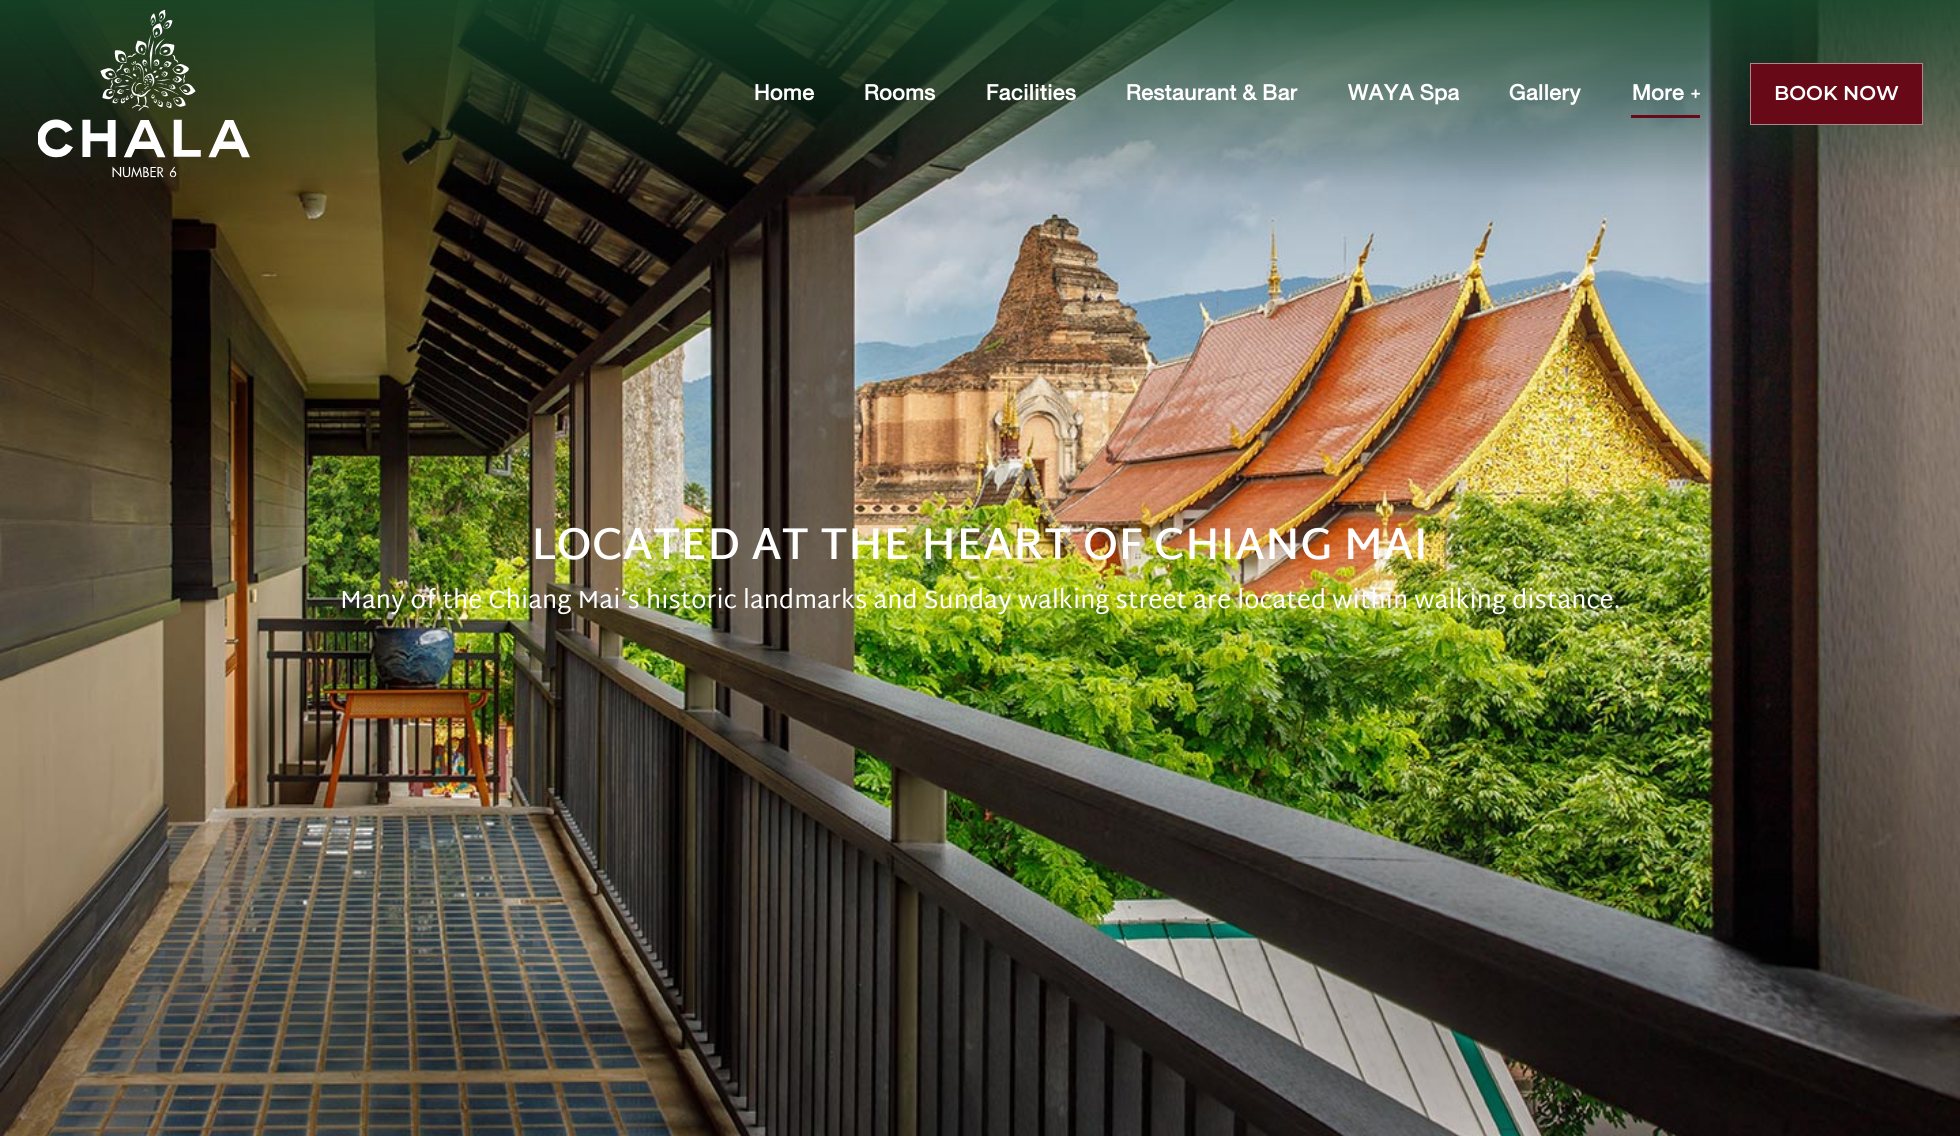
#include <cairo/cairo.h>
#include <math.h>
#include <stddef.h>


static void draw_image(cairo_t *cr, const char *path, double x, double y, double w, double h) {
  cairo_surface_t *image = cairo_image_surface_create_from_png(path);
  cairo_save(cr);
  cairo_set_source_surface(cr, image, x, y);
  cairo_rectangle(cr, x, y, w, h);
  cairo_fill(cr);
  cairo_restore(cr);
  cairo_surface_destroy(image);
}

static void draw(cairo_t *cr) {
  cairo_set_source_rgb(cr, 1, 1, 1);
  cairo_paint(cr);
  draw_image(cr, "images/3.png", 0, 0, 1960, 1136);
  draw_image(cr, "images/1.png", 38, 10, 212, 168);
  draw_image(cr, "images/2.png", 1691, 89, 9, 10);
  cairo_set_source_rgb(cr, 103 / 255.0, 9 / 255.0, 23 / 255.0);
  cairo_rectangle(cr, 1631, 115, 69, 3);
  cairo_fill(cr);
  cairo_rectangle(cr, 1750.5, 63.5, 172, 61);
  cairo_fill_preserve(cr);
  cairo_set_source_rgb(cr, 179 / 255.0, 132 / 255.0, 139 / 255.0);
  cairo_set_line_width(cr, 1);
  cairo_stroke(cr);
  cairo_select_font_face(cr, "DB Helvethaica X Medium", CAIRO_FONT_SLANT_ITALIC, CAIRO_FONT_WEIGHT_NORMAL);
  cairo_set_font_size(cr, 32.5);
  cairo_set_source_rgb(cr, 1, 1, 1);
  cairo_move_to(cr, 754, 100);
  cairo_show_text(cr, "Home");
  cairo_move_to(cr, 864, 100);
  cairo_show_text(cr, "Rooms");
  cairo_move_to(cr, 986, 100);
  cairo_show_text(cr, "Facilities");
  cairo_move_to(cr, 1126, 100);
  cairo_show_text(cr, "Restaurant & Bar");
  cairo_save(cr);
  cairo_rectangle(cr, 1348, 70, 111, 48);
  cairo_clip(cr);
  cairo_move_to(cr, 1348, 100);
  cairo_show_text(cr, "WAYA Spa");
  cairo_restore(cr);
  cairo_move_to(cr, 1509, 100);
  cairo_show_text(cr, "Gallery");
  cairo_move_to(cr, 1632, 100);
  cairo_show_text(cr, "More");
  cairo_select_font_face(cr, "Montserrat SemiBold", CAIRO_FONT_SLANT_NORMAL, CAIRO_FONT_WEIGHT_NORMAL);
  cairo_set_font_size(cr, 20);
  cairo_move_to(cr, 1774, 100);
  cairo_show_text(cr, "BOOK NOW");
  cairo_select_font_face(cr, "Martel Sans SemiBold", CAIRO_FONT_SLANT_NORMAL, CAIRO_FONT_WEIGHT_NORMAL);
  cairo_set_font_size(cr, 45);
  cairo_move_to(cr, 531, 559);
  cairo_show_text(cr, "LOCATED AT THE HEART OF CHIANG MAI");
  cairo_select_font_face(cr, "Martel Sans", CAIRO_FONT_SLANT_NORMAL, CAIRO_FONT_WEIGHT_NORMAL);
  cairo_set_font_size(cr, 25);
  cairo_move_to(cr, 340, 608);
  cairo_show_text(cr, "Many of the Chiang Mai’s historic landmarks and Sunday walking street are located within walking distance.");
}

int main(void) {
  cairo_surface_t *surface = cairo_image_surface_create(CAIRO_FORMAT_RGB24, 1960, 1136);
  cairo_t *cr = cairo_create(surface);
  cairo_font_options_t *options = cairo_font_options_create();
  cairo_font_options_set_hint_metrics(options, CAIRO_HINT_METRICS_OFF);
  cairo_font_options_set_hint_style(options, CAIRO_HINT_STYLE_NONE);
  cairo_set_font_options(cr, options);
  cairo_set_miter_limit(cr, 4);
  draw(cr);
  cairo_surface_write_to_png(surface, "out.png");
  cairo_font_options_destroy(options);
  cairo_destroy(cr);
  cairo_surface_destroy(surface);
  return 0;
}
